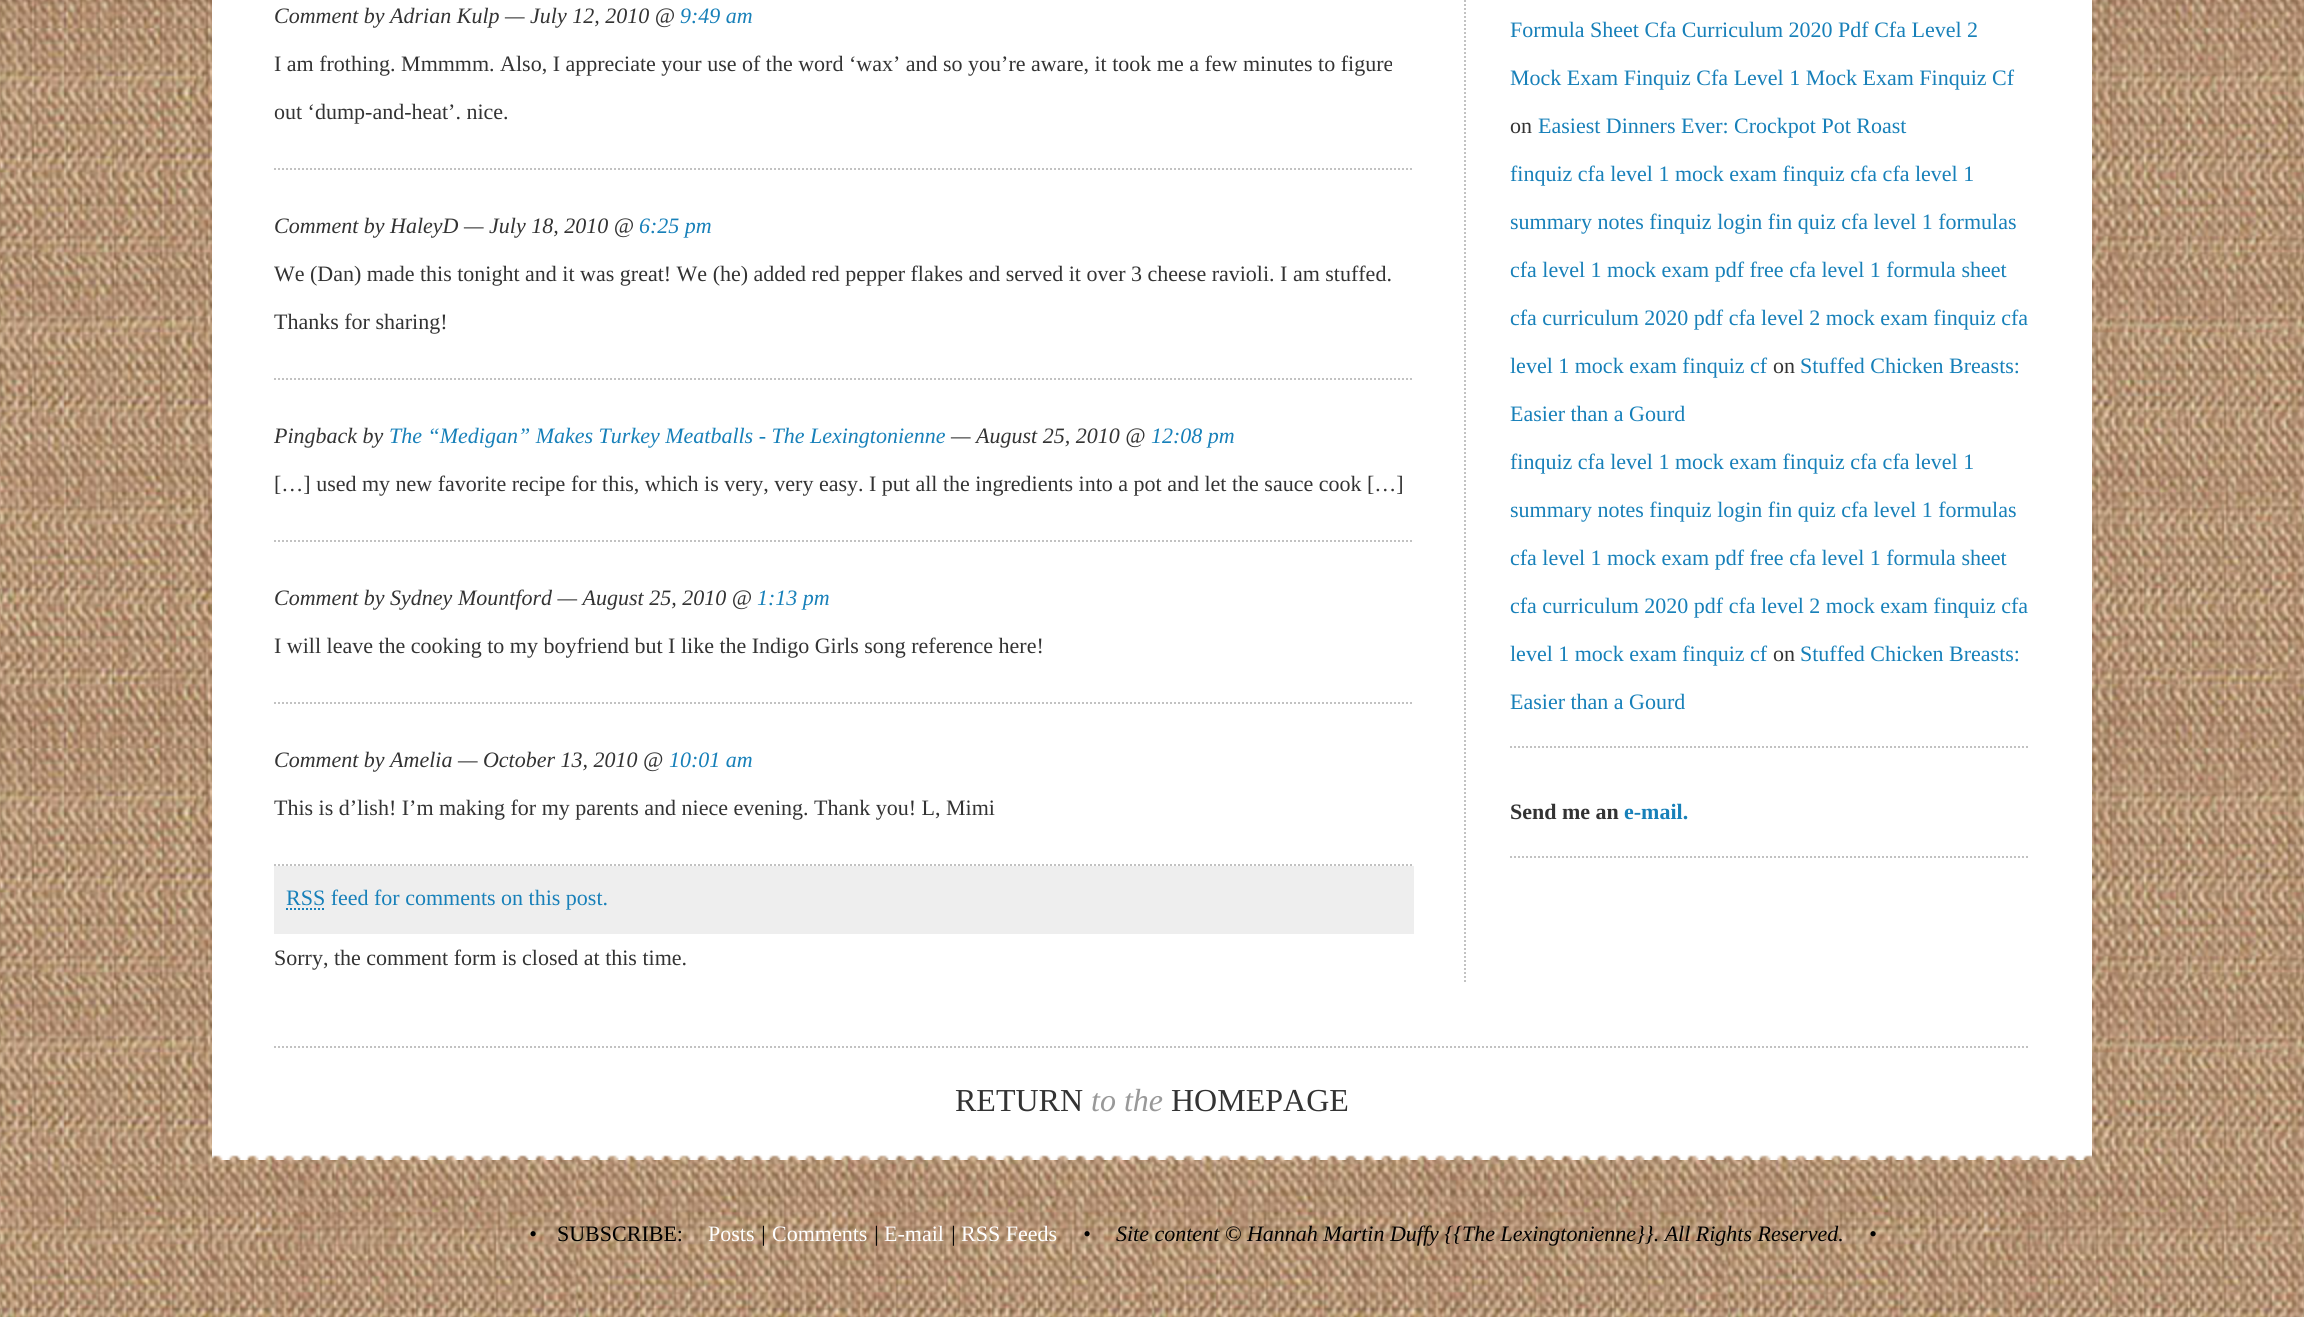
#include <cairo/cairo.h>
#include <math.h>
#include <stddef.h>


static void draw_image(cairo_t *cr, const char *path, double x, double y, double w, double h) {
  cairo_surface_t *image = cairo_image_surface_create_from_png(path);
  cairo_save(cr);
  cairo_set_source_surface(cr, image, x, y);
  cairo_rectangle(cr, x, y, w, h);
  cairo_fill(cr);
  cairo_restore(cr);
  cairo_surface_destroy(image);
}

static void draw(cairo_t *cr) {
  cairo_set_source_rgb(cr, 1, 1, 1);
  cairo_paint(cr);
  draw_image(cr, "images/1.png", 0, 0, 2304, 1317);
  cairo_set_source_rgb(cr, 1, 1, 1);
  cairo_rectangle(cr, 212, 0, 1880, 1022);
  cairo_fill(cr);
  cairo_new_path(cr);
  cairo_move_to(cr, 1465, -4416);
  cairo_line_to(cr, 1465, 982);
  cairo_set_source_rgb(cr, 194 / 255.0, 194 / 255.0, 194 / 255.0);
  cairo_set_dash(cr, (double[]){2, 2}, 2, 0);
  cairo_stroke(cr);
  cairo_new_path(cr);
  cairo_move_to(cr, 274, 169);
  cairo_line_to(cr, 1414, 169);
  cairo_stroke(cr);
  cairo_new_path(cr);
  cairo_move_to(cr, 274, 379);
  cairo_line_to(cr, 1414, 379);
  cairo_stroke(cr);
  cairo_new_path(cr);
  cairo_move_to(cr, 274, 541);
  cairo_line_to(cr, 1414, 541);
  cairo_stroke(cr);
  cairo_new_path(cr);
  cairo_move_to(cr, 274, 703);
  cairo_line_to(cr, 1414, 703);
  cairo_stroke(cr);
  cairo_new_path(cr);
  cairo_move_to(cr, 274, 865);
  cairo_line_to(cr, 1414, 865);
  cairo_stroke(cr);
  cairo_set_source_rgb(cr, 238 / 255.0, 238 / 255.0, 238 / 255.0);
  cairo_rectangle(cr, 274, 866, 1140, 68);
  cairo_fill(cr);
  cairo_new_path(cr);
  cairo_move_to(cr, 286, 909);
  cairo_line_to(cr, 325, 909);
  cairo_set_source_rgb(cr, 23 / 255.0, 128 / 255.0, 185 / 255.0);
  cairo_stroke(cr);
  cairo_new_path(cr);
  cairo_move_to(cr, 1510, 747);
  cairo_line_to(cr, 2030, 747);
  cairo_set_source_rgb(cr, 194 / 255.0, 194 / 255.0, 194 / 255.0);
  cairo_stroke(cr);
  cairo_new_path(cr);
  cairo_move_to(cr, 1510, 857);
  cairo_line_to(cr, 2030, 857);
  cairo_stroke(cr);
  draw_image(cr, "images/2.png", 212, 1022, 1880, 138);
  cairo_new_path(cr);
  cairo_move_to(cr, 274, 1047);
  cairo_line_to(cr, 2030, 1047);
  cairo_stroke(cr);
  cairo_select_font_face(cr, "Liberation Serif", CAIRO_FONT_SLANT_ITALIC, CAIRO_FONT_WEIGHT_NORMAL);
  cairo_set_font_size(cr, 22);
  cairo_set_source_rgb(cr, 51 / 255.0, 51 / 255.0, 51 / 255.0);
  cairo_move_to(cr, 274, 23);
  cairo_show_text(cr, "Comment by Adrian Kulp — July 12, 2010 @");
  cairo_set_source_rgb(cr, 23 / 255.0, 128 / 255.0, 185 / 255.0);
  cairo_move_to(cr, 680, 23);
  cairo_show_text(cr, "9:49 am");
  cairo_select_font_face(cr, "Liberation Serif", CAIRO_FONT_SLANT_NORMAL, CAIRO_FONT_WEIGHT_NORMAL);
  cairo_set_source_rgb(cr, 51 / 255.0, 51 / 255.0, 51 / 255.0);
  cairo_move_to(cr, 274, 71);
  cairo_show_text(cr, "I am frothing. Mmmmm. Also, I appreciate your use of the word ‘wax’ and so you’re aware, it took me a few minutes to figure");
  cairo_move_to(cr, 274, 119);
  cairo_show_text(cr, "out ‘dump-and-heat’. nice.");
  cairo_select_font_face(cr, "Liberation Serif", CAIRO_FONT_SLANT_ITALIC, CAIRO_FONT_WEIGHT_NORMAL);
  cairo_move_to(cr, 274, 233);
  cairo_show_text(cr, "Comment by HaleyD — July 18, 2010 @");
  cairo_set_source_rgb(cr, 23 / 255.0, 128 / 255.0, 185 / 255.0);
  cairo_move_to(cr, 639, 233);
  cairo_show_text(cr, "6:25 pm");
  cairo_select_font_face(cr, "Liberation Serif", CAIRO_FONT_SLANT_NORMAL, CAIRO_FONT_WEIGHT_NORMAL);
  cairo_set_source_rgb(cr, 51 / 255.0, 51 / 255.0, 51 / 255.0);
  cairo_move_to(cr, 274, 281);
  cairo_show_text(cr, "We (Dan) made this tonight and it was great! We (he) added red pepper flakes and served it over 3 cheese ravioli. I am stuffed.");
  cairo_move_to(cr, 274, 329);
  cairo_show_text(cr, "Thanks for sharing!");
  cairo_select_font_face(cr, "Liberation Serif", CAIRO_FONT_SLANT_ITALIC, CAIRO_FONT_WEIGHT_NORMAL);
  cairo_move_to(cr, 274, 443);
  cairo_show_text(cr, "Pingback by");
  cairo_set_source_rgb(cr, 23 / 255.0, 128 / 255.0, 185 / 255.0);
  cairo_move_to(cr, 389, 443);
  cairo_show_text(cr, "The “Medigan” Makes Turkey Meatballs - The Lexingtonienne");
  cairo_set_source_rgb(cr, 51 / 255.0, 51 / 255.0, 51 / 255.0);
  cairo_move_to(cr, 951, 443);
  cairo_show_text(cr, "— August 25, 2010 @");
  cairo_set_source_rgb(cr, 23 / 255.0, 128 / 255.0, 185 / 255.0);
  cairo_move_to(cr, 1151, 443);
  cairo_show_text(cr, "12:08 pm");
  cairo_select_font_face(cr, "Liberation Serif", CAIRO_FONT_SLANT_NORMAL, CAIRO_FONT_WEIGHT_NORMAL);
  cairo_set_source_rgb(cr, 51 / 255.0, 51 / 255.0, 51 / 255.0);
  cairo_move_to(cr, 274, 491);
  cairo_show_text(cr, "[…] used my new favorite recipe for this, which is very, very easy. I put all the ingredients into a pot and let the sauce cook […]");
  cairo_select_font_face(cr, "Liberation Serif", CAIRO_FONT_SLANT_ITALIC, CAIRO_FONT_WEIGHT_NORMAL);
  cairo_move_to(cr, 274, 605);
  cairo_show_text(cr, "Comment by Sydney Mountford — August 25, 2010 @");
  cairo_set_source_rgb(cr, 23 / 255.0, 128 / 255.0, 185 / 255.0);
  cairo_move_to(cr, 757, 605);
  cairo_show_text(cr, "1:13 pm");
  cairo_select_font_face(cr, "Liberation Serif", CAIRO_FONT_SLANT_NORMAL, CAIRO_FONT_WEIGHT_NORMAL);
  cairo_set_source_rgb(cr, 51 / 255.0, 51 / 255.0, 51 / 255.0);
  cairo_move_to(cr, 274, 653);
  cairo_show_text(cr, "I will leave the cooking to my boyfriend but I like the Indigo Girls song reference here!");
  cairo_select_font_face(cr, "Liberation Serif", CAIRO_FONT_SLANT_ITALIC, CAIRO_FONT_WEIGHT_NORMAL);
  cairo_move_to(cr, 274, 767);
  cairo_show_text(cr, "Comment by Amelia — October 13, 2010 @");
  cairo_set_source_rgb(cr, 23 / 255.0, 128 / 255.0, 185 / 255.0);
  cairo_move_to(cr, 669, 767);
  cairo_show_text(cr, "10:01 am");
  cairo_select_font_face(cr, "Liberation Serif", CAIRO_FONT_SLANT_NORMAL, CAIRO_FONT_WEIGHT_NORMAL);
  cairo_set_source_rgb(cr, 51 / 255.0, 51 / 255.0, 51 / 255.0);
  cairo_move_to(cr, 274, 815);
  cairo_show_text(cr, "This is d’lish! I’m making for my parents and niece evening. Thank you! L, Mimi");
  cairo_set_source_rgb(cr, 23 / 255.0, 128 / 255.0, 185 / 255.0);
  cairo_move_to(cr, 286, 905);
  cairo_show_text(cr, "RSS feed for comments on this post.");
  cairo_set_source_rgb(cr, 51 / 255.0, 51 / 255.0, 51 / 255.0);
  cairo_move_to(cr, 274, 965);
  cairo_show_text(cr, "Sorry, the comment form is closed at this time.");
  cairo_set_source_rgb(cr, 23 / 255.0, 128 / 255.0, 185 / 255.0);
  cairo_move_to(cr, 1510, 37);
  cairo_show_text(cr, "Formula Sheet Cfa Curriculum 2020 Pdf Cfa Level 2");
  cairo_move_to(cr, 1510, 85);
  cairo_show_text(cr, "Mock Exam Finquiz Cfa Level 1 Mock Exam Finquiz Cf");
  cairo_set_source_rgb(cr, 51 / 255.0, 51 / 255.0, 51 / 255.0);
  cairo_move_to(cr, 1510, 133);
  cairo_show_text(cr, "on");
  cairo_set_source_rgb(cr, 23 / 255.0, 128 / 255.0, 185 / 255.0);
  cairo_move_to(cr, 1538, 133);
  cairo_show_text(cr, "Easiest Dinners Ever: Crockpot Pot Roast");
  cairo_move_to(cr, 1510, 181);
  cairo_show_text(cr, "finquiz cfa level 1 mock exam finquiz cfa cfa level 1");
  cairo_move_to(cr, 1510, 229);
  cairo_show_text(cr, "summary notes finquiz login fin quiz cfa level 1 formulas");
  cairo_move_to(cr, 1510, 277);
  cairo_show_text(cr, "cfa level 1 mock exam pdf free cfa level 1 formula sheet");
  cairo_move_to(cr, 1510, 325);
  cairo_show_text(cr, "cfa curriculum 2020 pdf cfa level 2 mock exam finquiz cfa");
  cairo_move_to(cr, 1510, 373);
  cairo_show_text(cr, "level 1 mock exam finquiz cf");
  cairo_set_source_rgb(cr, 51 / 255.0, 51 / 255.0, 51 / 255.0);
  cairo_move_to(cr, 1773, 373);
  cairo_show_text(cr, "on");
  cairo_set_source_rgb(cr, 23 / 255.0, 128 / 255.0, 185 / 255.0);
  cairo_move_to(cr, 1800, 373);
  cairo_show_text(cr, "Stuffed Chicken Breasts:");
  cairo_move_to(cr, 1510, 421);
  cairo_show_text(cr, "Easier than a Gourd");
  cairo_move_to(cr, 1510, 469);
  cairo_show_text(cr, "finquiz cfa level 1 mock exam finquiz cfa cfa level 1");
  cairo_move_to(cr, 1510, 517);
  cairo_show_text(cr, "summary notes finquiz login fin quiz cfa level 1 formulas");
  cairo_move_to(cr, 1510, 565);
  cairo_show_text(cr, "cfa level 1 mock exam pdf free cfa level 1 formula sheet");
  cairo_move_to(cr, 1510, 613);
  cairo_show_text(cr, "cfa curriculum 2020 pdf cfa level 2 mock exam finquiz cfa");
  cairo_move_to(cr, 1510, 661);
  cairo_show_text(cr, "level 1 mock exam finquiz cf");
  cairo_set_source_rgb(cr, 51 / 255.0, 51 / 255.0, 51 / 255.0);
  cairo_move_to(cr, 1773, 661);
  cairo_show_text(cr, "on");
  cairo_set_source_rgb(cr, 23 / 255.0, 128 / 255.0, 185 / 255.0);
  cairo_move_to(cr, 1800, 661);
  cairo_show_text(cr, "Stuffed Chicken Breasts:");
  cairo_move_to(cr, 1510, 709);
  cairo_show_text(cr, "Easier than a Gourd");
  cairo_select_font_face(cr, "Liberation Serif", CAIRO_FONT_SLANT_NORMAL, CAIRO_FONT_WEIGHT_BOLD);
  cairo_set_source_rgb(cr, 51 / 255.0, 51 / 255.0, 51 / 255.0);
  cairo_move_to(cr, 1510, 819);
  cairo_show_text(cr, "Send me an");
  cairo_set_source_rgb(cr, 23 / 255.0, 128 / 255.0, 185 / 255.0);
  cairo_move_to(cr, 1624, 819);
  cairo_show_text(cr, "e-mail.");
  cairo_select_font_face(cr, "Liberation Serif", CAIRO_FONT_SLANT_NORMAL, CAIRO_FONT_WEIGHT_NORMAL);
  cairo_set_font_size(cr, 32);
  cairo_set_source_rgb(cr, 51 / 255.0, 51 / 255.0, 51 / 255.0);
  cairo_move_to(cr, 955, 1111);
  cairo_show_text(cr, "RETURN");
  cairo_select_font_face(cr, "Liberation Serif", CAIRO_FONT_SLANT_ITALIC, CAIRO_FONT_WEIGHT_NORMAL);
  cairo_set_source_rgb(cr, 153 / 255.0, 153 / 255.0, 153 / 255.0);
  cairo_move_to(cr, 1091, 1111);
  cairo_show_text(cr, "to the");
  cairo_select_font_face(cr, "Liberation Serif", CAIRO_FONT_SLANT_NORMAL, CAIRO_FONT_WEIGHT_NORMAL);
  cairo_set_source_rgb(cr, 51 / 255.0, 51 / 255.0, 51 / 255.0);
  cairo_move_to(cr, 1171, 1111);
  cairo_show_text(cr, "HOMEPAGE");
  cairo_select_font_face(cr, "Liberation Serif", CAIRO_FONT_SLANT_ITALIC, CAIRO_FONT_WEIGHT_NORMAL);
  cairo_set_font_size(cr, 22);
  cairo_set_source_rgb(cr, 0, 0, 0);
  cairo_move_to(cr, 529, 1241);
  cairo_show_text(cr, "•");
  cairo_select_font_face(cr, "Liberation Serif", CAIRO_FONT_SLANT_NORMAL, CAIRO_FONT_WEIGHT_NORMAL);
  cairo_move_to(cr, 557, 1241);
  cairo_show_text(cr, "SUBSCRIBE:");
  cairo_set_source_rgb(cr, 1, 1, 1);
  cairo_move_to(cr, 708, 1241);
  cairo_show_text(cr, "Posts");
  cairo_select_font_face(cr, "Liberation Serif", CAIRO_FONT_SLANT_ITALIC, CAIRO_FONT_WEIGHT_NORMAL);
  cairo_set_source_rgb(cr, 0, 0, 0);
  cairo_move_to(cr, 760, 1241);
  cairo_show_text(cr, "|");
  cairo_select_font_face(cr, "Liberation Serif", CAIRO_FONT_SLANT_NORMAL, CAIRO_FONT_WEIGHT_NORMAL);
  cairo_set_source_rgb(cr, 1, 1, 1);
  cairo_move_to(cr, 772, 1241);
  cairo_show_text(cr, "Comments");
  cairo_select_font_face(cr, "Liberation Serif", CAIRO_FONT_SLANT_ITALIC, CAIRO_FONT_WEIGHT_NORMAL);
  cairo_set_source_rgb(cr, 0, 0, 0);
  cairo_move_to(cr, 873, 1241);
  cairo_show_text(cr, "|");
  cairo_select_font_face(cr, "Liberation Serif", CAIRO_FONT_SLANT_NORMAL, CAIRO_FONT_WEIGHT_NORMAL);
  cairo_set_source_rgb(cr, 1, 1, 1);
  cairo_move_to(cr, 884, 1241);
  cairo_show_text(cr, "E-mail");
  cairo_select_font_face(cr, "Liberation Serif", CAIRO_FONT_SLANT_ITALIC, CAIRO_FONT_WEIGHT_NORMAL);
  cairo_set_source_rgb(cr, 0, 0, 0);
  cairo_move_to(cr, 950, 1241);
  cairo_show_text(cr, "|");
  cairo_select_font_face(cr, "Liberation Serif", CAIRO_FONT_SLANT_NORMAL, CAIRO_FONT_WEIGHT_NORMAL);
  cairo_set_source_rgb(cr, 1, 1, 1);
  cairo_move_to(cr, 961, 1241);
  cairo_show_text(cr, "RSS Feeds");
  cairo_select_font_face(cr, "Liberation Serif", CAIRO_FONT_SLANT_ITALIC, CAIRO_FONT_WEIGHT_NORMAL);
  cairo_set_source_rgb(cr, 0, 0, 0);
  cairo_move_to(cr, 1083, 1241);
  cairo_show_text(cr, "•");
  cairo_move_to(cr, 1116, 1241);
  cairo_show_text(cr, "Site content © Hannah Martin Duffy {{The Lexingtonienne}}. All Rights Reserved.");
  cairo_move_to(cr, 1869, 1241);
  cairo_show_text(cr, "•");
}

int main(void) {
  cairo_surface_t *surface = cairo_image_surface_create(CAIRO_FORMAT_RGB24, 2304, 1317);
  cairo_t *cr = cairo_create(surface);
  cairo_font_options_t *options = cairo_font_options_create();
  cairo_font_options_set_hint_metrics(options, CAIRO_HINT_METRICS_OFF);
  cairo_font_options_set_hint_style(options, CAIRO_HINT_STYLE_NONE);
  cairo_set_font_options(cr, options);
  cairo_set_miter_limit(cr, 4);
  draw(cr);
  cairo_surface_write_to_png(surface, "out.png");
  cairo_font_options_destroy(options);
  cairo_destroy(cr);
  cairo_surface_destroy(surface);
  return 0;
}
